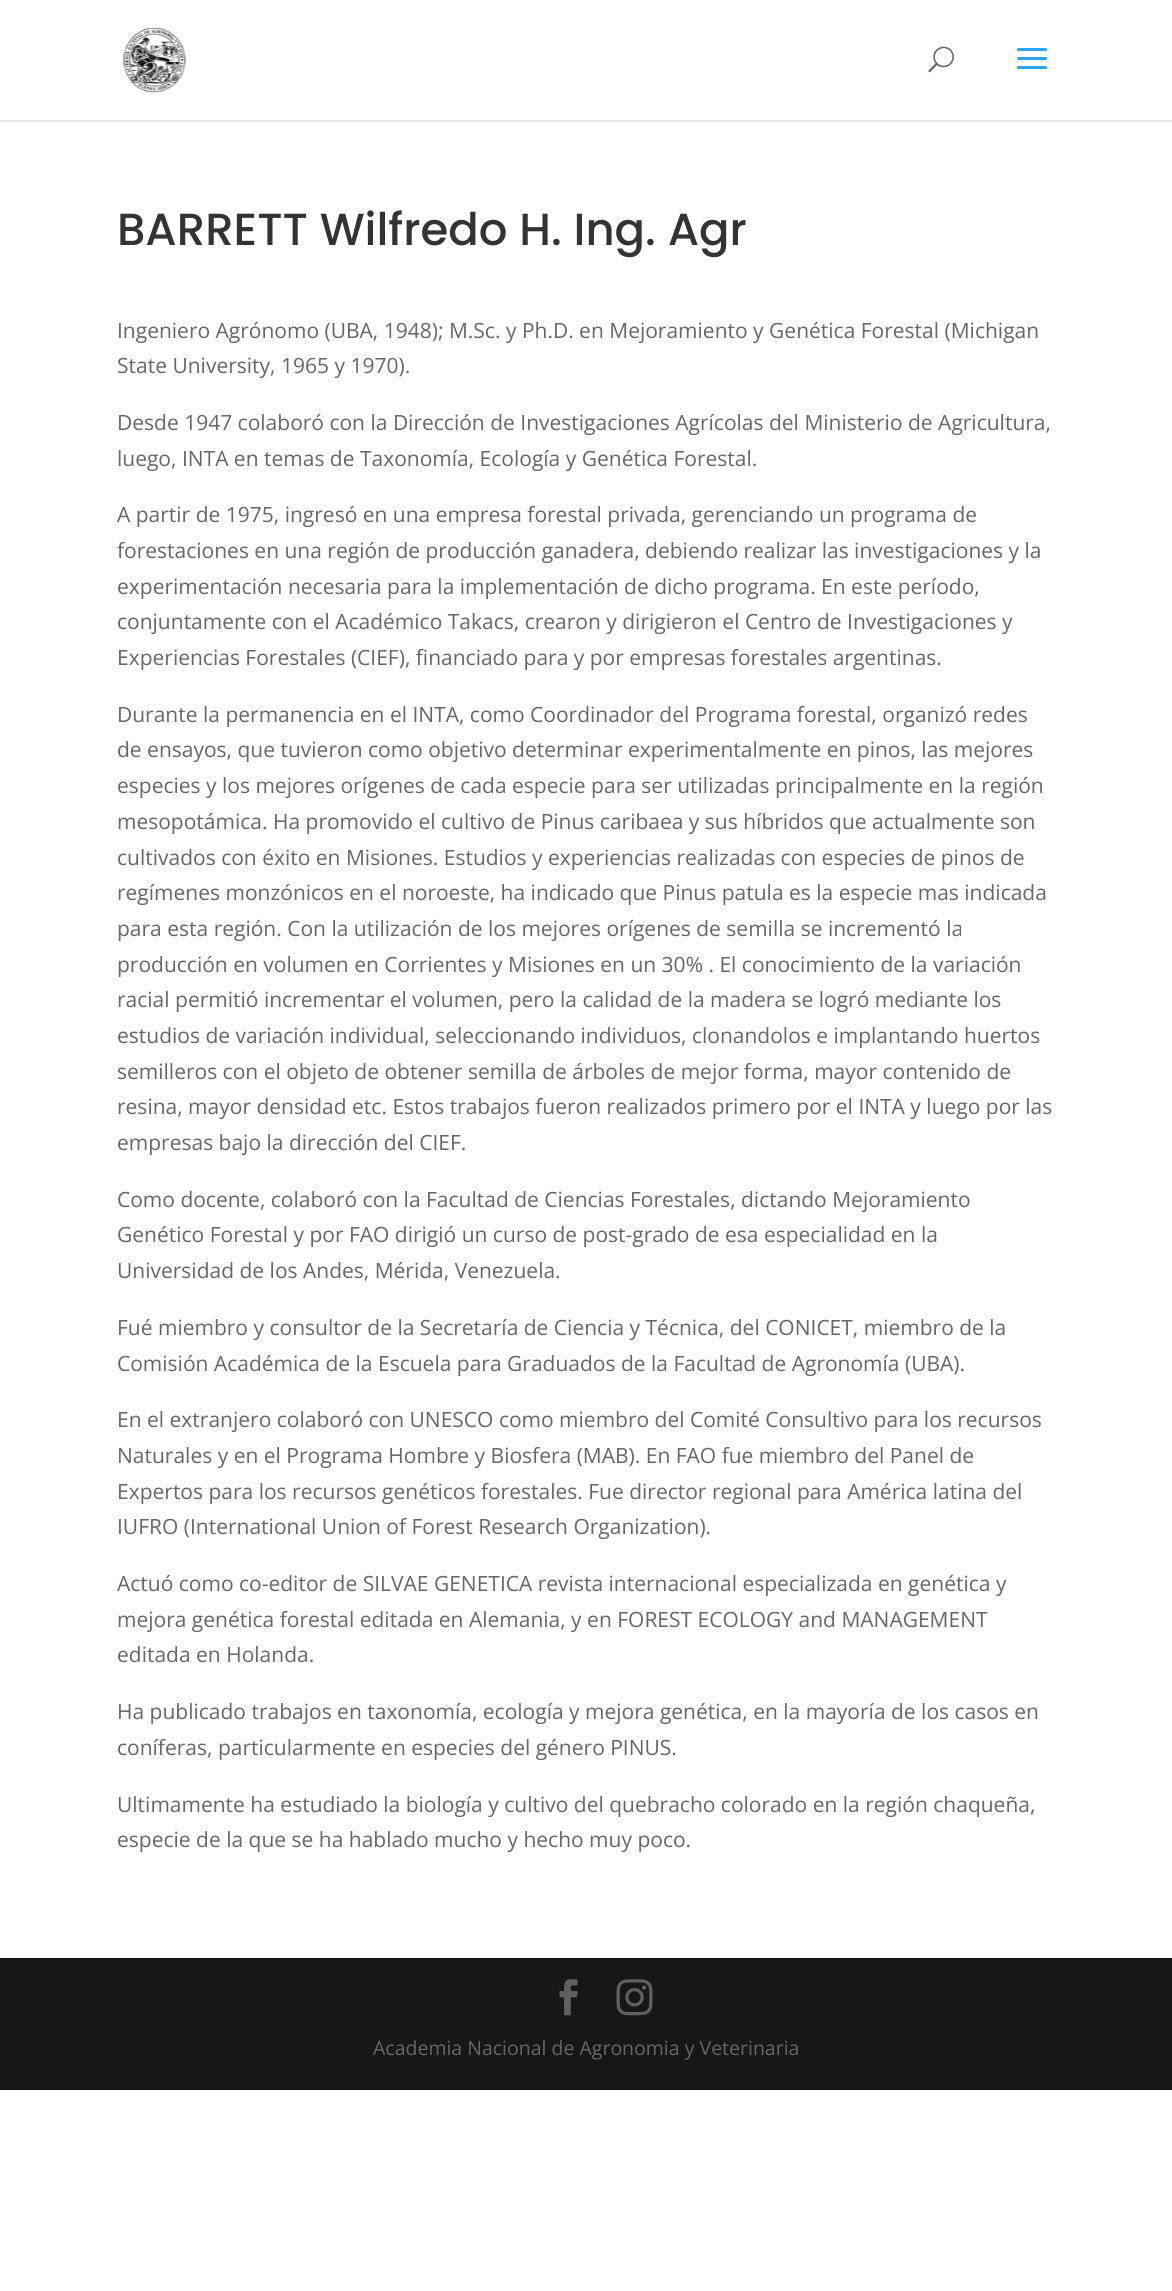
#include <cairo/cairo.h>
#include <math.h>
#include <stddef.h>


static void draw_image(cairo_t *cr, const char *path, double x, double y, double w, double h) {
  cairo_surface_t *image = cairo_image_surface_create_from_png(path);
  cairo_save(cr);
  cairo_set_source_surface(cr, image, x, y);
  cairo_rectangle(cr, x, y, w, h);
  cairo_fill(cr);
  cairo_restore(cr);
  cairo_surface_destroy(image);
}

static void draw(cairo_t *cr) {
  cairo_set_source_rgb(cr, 1, 1, 1);
  cairo_paint(cr);
  cairo_set_source_rgb(cr, 230 / 255.0, 230 / 255.0, 230 / 255.0);
  cairo_rectangle(cr, 0, 120, 1172, 2);
  cairo_fill(cr);
  draw_image(cr, "images/1.png", 122, 27, 64, 66);
  draw_image(cr, "images/2.png", 928, 46, 26, 27);
  draw_image(cr, "images/3.png", 1017, 48, 30, 21);
  cairo_set_source_rgb(cr, 23 / 255.0, 23 / 255.0, 23 / 255.0);
  cairo_rectangle(cr, 0, 1958, 1172, 132);
  cairo_fill(cr);
  draw_image(cr, "images/4.png", 559, 1979, 19, 37);
  draw_image(cr, "images/5.png", 616, 1979, 37, 37);
  cairo_select_font_face(cr, "Poppins Medium", CAIRO_FONT_SLANT_NORMAL, CAIRO_FONT_WEIGHT_NORMAL);
  cairo_set_font_size(cr, 45);
  cairo_set_source_rgb(cr, 51 / 255.0, 51 / 255.0, 51 / 255.0);
  cairo_move_to(cr, 117, 245);
  cairo_show_text(cr, "BARRETT Wilfredo H. Ing. Agr");
  cairo_select_font_face(cr, "Open Sans", CAIRO_FONT_SLANT_NORMAL, CAIRO_FONT_WEIGHT_NORMAL);
  cairo_set_font_size(cr, 21);
  cairo_set_source_rgb(cr, 102 / 255.0, 102 / 255.0, 102 / 255.0);
  cairo_move_to(cr, 117, 338);
  cairo_show_text(cr, "Ingeniero Agrónomo (UBA, 1948); M.Sc. y Ph.D. en Mejoramiento y Genética Forestal (Michigan");
  cairo_move_to(cr, 117, 373);
  cairo_show_text(cr, "State University, 1965 y 1970).");
  cairo_move_to(cr, 117, 430);
  cairo_show_text(cr, "Desde 1947 colaboró con la Dirección de Investigaciones Agrícolas del Ministerio de Agricultura,");
  cairo_move_to(cr, 117, 466);
  cairo_show_text(cr, "luego, INTA en temas de Taxonomía, Ecología y Genética Forestal.");
  cairo_move_to(cr, 117, 522);
  cairo_show_text(cr, "A partir de 1975, ingresó en una empresa forestal privada, gerenciando un programa de");
  cairo_move_to(cr, 117, 558);
  cairo_show_text(cr, "forestaciones en una región de producción ganadera, debiendo realizar las investigaciones y la");
  cairo_move_to(cr, 117, 594);
  cairo_show_text(cr, "experimentación necesaria para la implementación de dicho programa. En este período,");
  cairo_move_to(cr, 117, 629);
  cairo_show_text(cr, "conjuntamente con el Académico Takacs, crearon y dirigieron el Centro de Investigaciones y");
  cairo_move_to(cr, 117, 665);
  cairo_show_text(cr, "Experiencias Forestales (CIEF), financiado para y por empresas forestales argentinas.");
  cairo_move_to(cr, 117, 722);
  cairo_show_text(cr, "Durante la permanencia en el INTA, como Coordinador del Programa forestal, organizó redes");
  cairo_move_to(cr, 117, 757);
  cairo_show_text(cr, "de ensayos, que tuvieron como objetivo determinar experimentalmente en pinos, las mejores");
  cairo_move_to(cr, 117, 793);
  cairo_show_text(cr, "especies y los mejores orígenes de cada especie para ser utilizadas principalmente en la región");
  cairo_move_to(cr, 117, 829);
  cairo_show_text(cr, "mesopotámica. Ha promovido el cultivo de Pinus caribaea y sus híbridos que actualmente son");
  cairo_move_to(cr, 117, 865);
  cairo_show_text(cr, "cultivados con éxito en Misiones. Estudios y experiencias realizadas con especies de pinos de");
  cairo_move_to(cr, 117, 900);
  cairo_show_text(cr, "regímenes monzónicos en el noroeste, ha indicado que Pinus patula es la especie mas indicada");
  cairo_move_to(cr, 117, 936);
  cairo_show_text(cr, "para esta región. Con la utilización de los mejores orígenes de semilla se incrementó la");
  cairo_move_to(cr, 117, 972);
  cairo_show_text(cr, "producción en volumen en Corrientes y Misiones en un 30% . El conocimiento de la variación");
  cairo_move_to(cr, 117, 1007);
  cairo_show_text(cr, "racial permitió incrementar el volumen, pero la calidad de la madera se logró mediante los");
  cairo_move_to(cr, 117, 1043);
  cairo_show_text(cr, "estudios de variación individual, seleccionando individuos, clonandolos e implantando huertos");
  cairo_move_to(cr, 117, 1079);
  cairo_show_text(cr, "semilleros con el objeto de obtener semilla de árboles de mejor forma, mayor contenido de");
  cairo_move_to(cr, 117, 1114);
  cairo_show_text(cr, "resina, mayor densidad etc. Estos trabajos fueron realizados primero por el INTA y luego por las");
  cairo_move_to(cr, 117, 1150);
  cairo_show_text(cr, "empresas bajo la dirección del CIEF.");
  cairo_move_to(cr, 117, 1207);
  cairo_show_text(cr, "Como docente, colaboró con la Facultad de Ciencias Forestales, dictando Mejoramiento");
  cairo_move_to(cr, 117, 1242);
  cairo_show_text(cr, "Genético Forestal y por FAO dirigió un curso de post-grado de esa especialidad en la");
  cairo_move_to(cr, 117, 1278);
  cairo_show_text(cr, "Universidad de los Andes, Mérida, Venezuela.");
  cairo_move_to(cr, 117, 1335);
  cairo_show_text(cr, "Fué miembro y consultor de la Secretaría de Ciencia y Técnica, del CONICET, miembro de la");
  cairo_move_to(cr, 117, 1371);
  cairo_show_text(cr, "Comisión Académica de la Escuela para Graduados de la Facultad de Agronomía (UBA).");
  cairo_move_to(cr, 117, 1427);
  cairo_show_text(cr, "En el extranjero colaboró con UNESCO como miembro del Comité Consultivo para los recursos");
  cairo_move_to(cr, 117, 1463);
  cairo_show_text(cr, "Naturales y en el Programa Hombre y Biosfera (MAB). En FAO fue miembro del Panel de");
  cairo_move_to(cr, 117, 1499);
  cairo_show_text(cr, "Expertos para los recursos genéticos forestales. Fue director regional para América latina del");
  cairo_move_to(cr, 117, 1534);
  cairo_show_text(cr, "IUFRO (International Union of Forest Research Organization).");
  cairo_move_to(cr, 117, 1591);
  cairo_show_text(cr, "Actuó como co-editor de SILVAE GENETICA revista internacional especializada en genética y");
  cairo_move_to(cr, 117, 1627);
  cairo_show_text(cr, "mejora genética forestal editada en Alemania, y en FOREST ECOLOGY and MANAGEMENT");
  cairo_move_to(cr, 117, 1662);
  cairo_show_text(cr, "editada en Holanda.");
  cairo_move_to(cr, 117, 1719);
  cairo_show_text(cr, "Ha publicado trabajos en taxonomía, ecología y mejora genética, en la mayoría de los casos en");
  cairo_move_to(cr, 117, 1755);
  cairo_show_text(cr, "coníferas, particularmente en especies del género PINUS.");
  cairo_move_to(cr, 117, 1812);
  cairo_show_text(cr, "Ultimamente ha estudiado la biología y cultivo del quebracho colorado en la región chaqueña,");
  cairo_move_to(cr, 117, 1847);
  cairo_show_text(cr, "especie de la que se ha hablado mucho y hecho muy poco.");
  cairo_set_font_size(cr, 19.5);
  cairo_move_to(cr, 373, 2055);
  cairo_show_text(cr, "Academia Nacional de Agronomia y Veterinaria");
}

int main(void) {
  cairo_surface_t *surface = cairo_image_surface_create(CAIRO_FORMAT_RGB24, 1172, 2291);
  cairo_t *cr = cairo_create(surface);
  cairo_font_options_t *options = cairo_font_options_create();
  cairo_font_options_set_hint_metrics(options, CAIRO_HINT_METRICS_OFF);
  cairo_font_options_set_hint_style(options, CAIRO_HINT_STYLE_NONE);
  cairo_set_font_options(cr, options);
  cairo_set_miter_limit(cr, 4);
  draw(cr);
  cairo_surface_write_to_png(surface, "out.png");
  cairo_font_options_destroy(options);
  cairo_destroy(cr);
  cairo_surface_destroy(surface);
  return 0;
}
